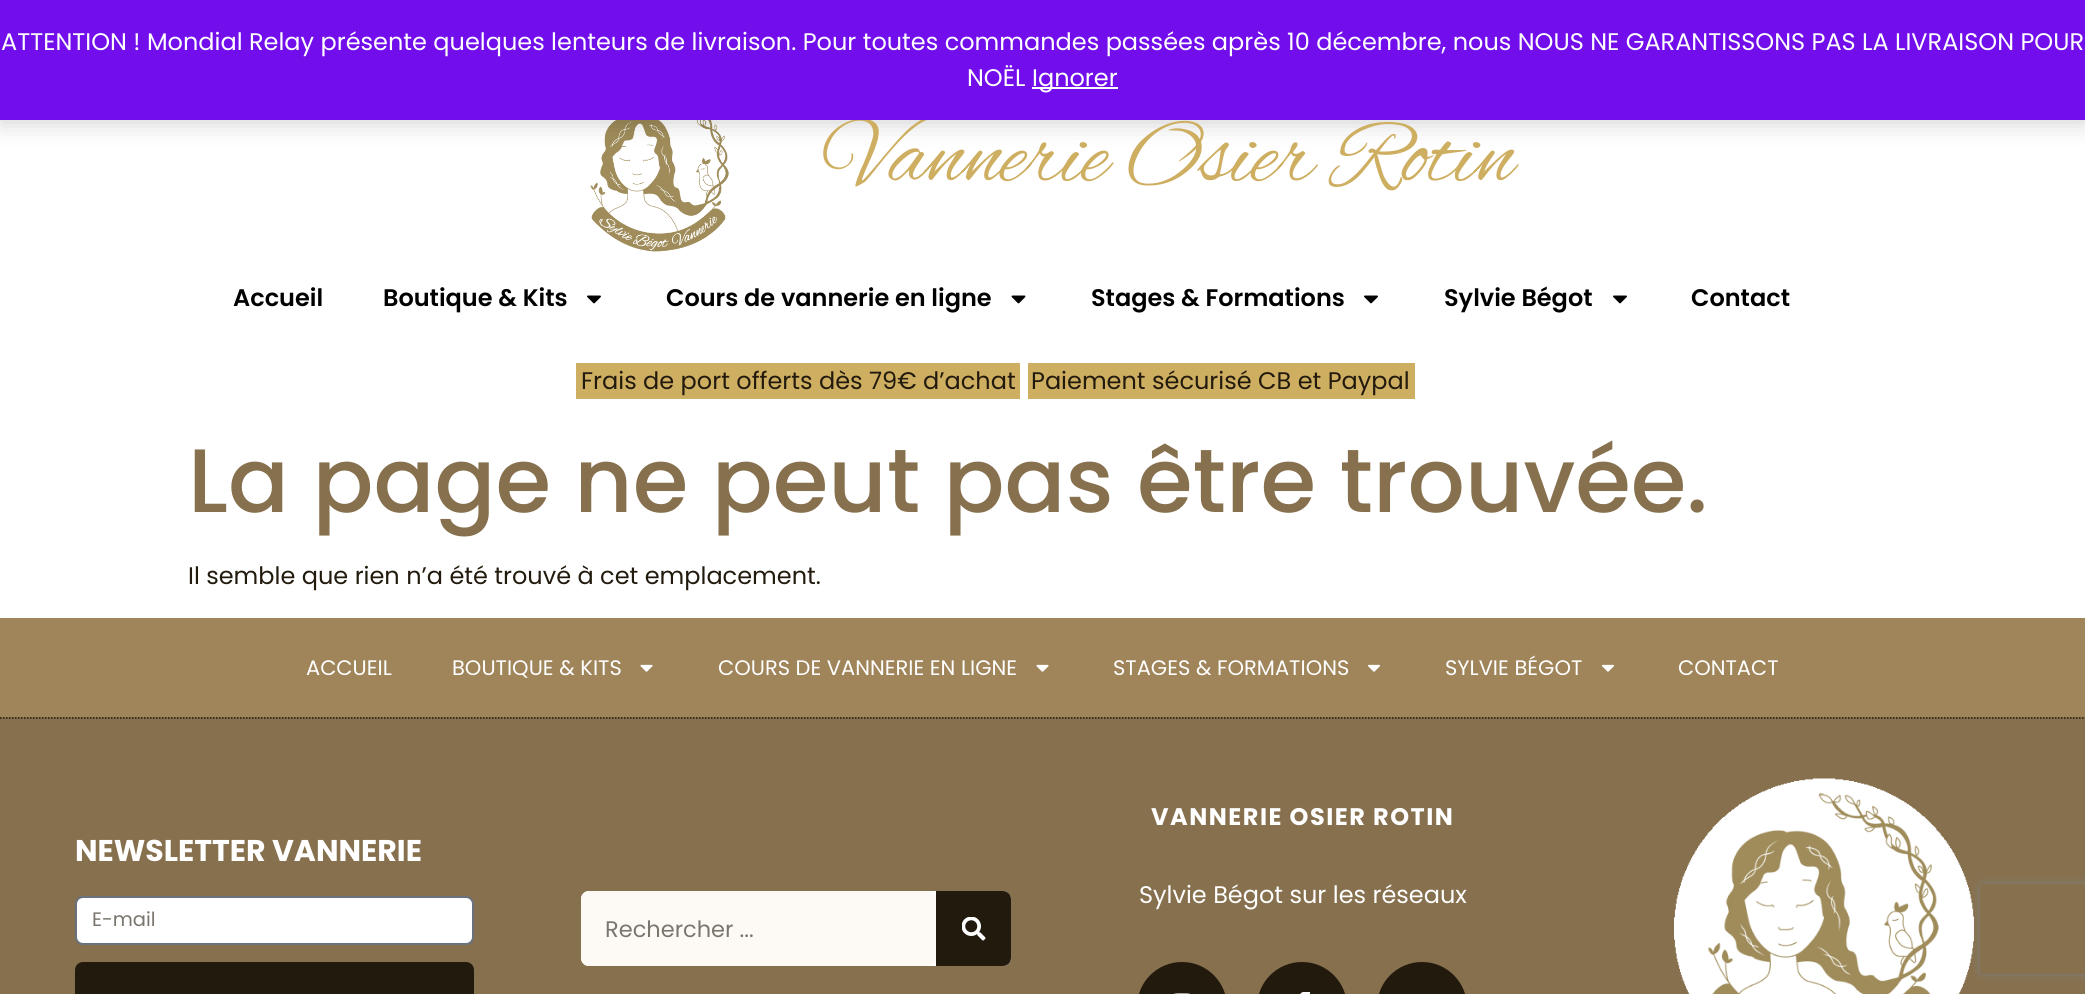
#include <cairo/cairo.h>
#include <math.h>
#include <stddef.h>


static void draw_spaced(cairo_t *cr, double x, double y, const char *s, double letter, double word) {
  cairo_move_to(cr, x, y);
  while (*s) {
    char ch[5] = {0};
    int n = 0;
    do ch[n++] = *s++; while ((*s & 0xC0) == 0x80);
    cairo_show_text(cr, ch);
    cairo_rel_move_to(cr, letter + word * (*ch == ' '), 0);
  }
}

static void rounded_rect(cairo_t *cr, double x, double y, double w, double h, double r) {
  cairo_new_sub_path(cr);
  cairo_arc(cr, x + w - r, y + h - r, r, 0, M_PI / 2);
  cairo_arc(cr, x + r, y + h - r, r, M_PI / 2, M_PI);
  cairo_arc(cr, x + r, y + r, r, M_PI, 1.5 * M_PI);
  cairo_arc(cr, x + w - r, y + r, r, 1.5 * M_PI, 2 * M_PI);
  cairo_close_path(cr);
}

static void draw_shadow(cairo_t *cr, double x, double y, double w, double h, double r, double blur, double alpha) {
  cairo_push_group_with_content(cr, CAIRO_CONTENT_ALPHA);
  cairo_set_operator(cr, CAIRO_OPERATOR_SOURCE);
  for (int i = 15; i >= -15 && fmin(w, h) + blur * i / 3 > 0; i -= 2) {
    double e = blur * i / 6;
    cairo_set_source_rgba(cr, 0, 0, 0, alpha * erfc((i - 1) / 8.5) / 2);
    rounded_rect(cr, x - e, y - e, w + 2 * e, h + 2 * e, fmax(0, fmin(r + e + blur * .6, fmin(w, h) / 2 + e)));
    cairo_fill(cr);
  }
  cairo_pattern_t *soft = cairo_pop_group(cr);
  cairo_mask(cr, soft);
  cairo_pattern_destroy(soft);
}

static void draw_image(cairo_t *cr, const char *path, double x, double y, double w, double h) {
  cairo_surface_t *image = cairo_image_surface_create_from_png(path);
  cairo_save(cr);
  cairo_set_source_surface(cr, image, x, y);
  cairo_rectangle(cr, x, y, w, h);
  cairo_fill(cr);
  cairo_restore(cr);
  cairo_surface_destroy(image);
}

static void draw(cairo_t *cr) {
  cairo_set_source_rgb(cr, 1, 1, 1);
  cairo_paint(cr);
  draw_image(cr, "images/1.png", 590, 120, 139, 132);
  cairo_set_source_rgb(cr, 0, 0, 0);
  draw_shadow(cr, 0, 2, 2085, 120, 0, 12, 0.2);
  draw_image(cr, "images/2.png", 587, 295, 14, 9);
  draw_image(cr, "images/3.png", 1011, 295, 15, 9);
  draw_image(cr, "images/2.png", 1364, 295, 14, 9);
  draw_image(cr, "images/2.png", 1613, 295, 14, 9);
  cairo_set_source_rgb(cr, 206 / 255.0, 174 / 255.0, 97 / 255.0);
  cairo_rectangle(cr, 576, 363, 444, 36);
  cairo_fill(cr);
  cairo_rectangle(cr, 1028, 363, 387, 36);
  cairo_fill(cr);
  cairo_set_source_rgb(cr, 160 / 255.0, 133 / 255.0, 91 / 255.0);
  cairo_rectangle(cr, 0, 618, 2085, 99);
  cairo_fill(cr);
  draw_image(cr, "images/4.png", 640, 664, 13, 8);
  draw_image(cr, "images/4.png", 1036, 664, 13, 8);
  draw_image(cr, "images/5.png", 1367, 664, 14, 8);
  draw_image(cr, "images/5.png", 1601, 664, 14, 8);
  cairo_set_source_rgb(cr, 134 / 255.0, 112 / 255.0, 78 / 255.0);
  cairo_rectangle(cr, 0, 717, 2085, 277);
  cairo_fill(cr);
  cairo_new_path(cr);
  cairo_move_to(cr, 0, 718);
  cairo_line_to(cr, 2085, 718);
  cairo_set_source_rgb(cr, 34 / 255.0, 26 / 255.0, 13 / 255.0);
  cairo_set_line_width(cr, 1.5);
  cairo_set_dash(cr, (double[]){1.5, 1.5}, 2, 0);
  cairo_stroke(cr);
  cairo_set_source_rgb(cr, 1, 1, 1);
  rounded_rect(cr, 76, 897, 397, 47, 7);
  cairo_fill_preserve(cr);
  cairo_set_source_rgb(cr, 105 / 255.0, 114 / 255.0, 125 / 255.0);
  cairo_set_line_width(cr, 2);
  cairo_set_dash(cr, NULL, 0, 0);
  cairo_stroke(cr);
  draw_image(cr, "images/8.png", 1674, 778, 300, 216);
  cairo_save(cr);
  cairo_set_fill_rule(cr, CAIRO_FILL_RULE_EVEN_ODD);
  cairo_new_path(cr);
  cairo_move_to(cr, 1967, 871);
  cairo_line_to(cr, 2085, 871);
  cairo_line_to(cr, 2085, 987);
  cairo_line_to(cr, 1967, 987);
  cairo_close_path(cr);
  cairo_move_to(cr, 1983, 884);
  cairo_line_to(cr, 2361, 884);
  cairo_curve_to(cr, 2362.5, 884, 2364, 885.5, 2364, 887);
  cairo_line_to(cr, 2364, 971);
  cairo_curve_to(cr, 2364, 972.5, 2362.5, 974, 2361, 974);
  cairo_line_to(cr, 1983, 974);
  cairo_curve_to(cr, 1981.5, 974, 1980, 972.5, 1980, 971);
  cairo_line_to(cr, 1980, 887);
  cairo_curve_to(cr, 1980, 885.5, 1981.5, 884, 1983, 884);
  cairo_close_path(cr);
  cairo_clip(cr);
  cairo_set_source_rgb(cr, 128 / 255.0, 128 / 255.0, 128 / 255.0);
  draw_shadow(cr, 1980, 884, 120, 90, 3, 4, 1);
  cairo_restore(cr);
  cairo_set_source_rgb(cr, 34 / 255.0, 26 / 255.0, 13 / 255.0);
  rounded_rect(cr, 75, 962, 399, 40, 8);
  cairo_fill(cr);
  rounded_rect(cr, 1137, 962, 90, 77, 45);
  cairo_fill(cr);
  draw_image(cr, "images/6.png", 1173, 993, 18, 1);
  rounded_rect(cr, 1257, 962, 90, 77, 45);
  cairo_fill(cr);
  draw_image(cr, "images/7.png", 1300, 992, 11, 2);
  rounded_rect(cr, 1377, 962, 90, 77, 45);
  cairo_fill(cr);
  cairo_set_source_rgb(cr, 1, 1, 1);
  rounded_rect(cr, 581, 891, 430, 75, 8);
  cairo_fill(cr);
  cairo_set_source_rgb(cr, 253 / 255.0, 250 / 255.0, 245 / 255.0);
  rounded_rect(cr, 581, 891, 355, 75, 8);
  cairo_fill(cr);
  cairo_set_source_rgb(cr, 34 / 255.0, 26 / 255.0, 13 / 255.0);
  cairo_new_path(cr);
  cairo_move_to(cr, 936, 891);
  cairo_line_to(cr, 1003, 891);
  cairo_curve_to(cr, 1007.5, 891, 1011, 894.5, 1011, 899);
  cairo_line_to(cr, 1011, 958);
  cairo_curve_to(cr, 1011, 962.5, 1007.5, 966, 1003, 966);
  cairo_line_to(cr, 936, 966);
  cairo_close_path(cr);
  cairo_fill(cr);
  draw_image(cr, "images/9.png", 962, 917, 24, 24);
  cairo_select_font_face(cr, "Alex Brush", CAIRO_FONT_SLANT_NORMAL, CAIRO_FONT_WEIGHT_NORMAL);
  cairo_set_font_size(cr, 93);
  cairo_set_source_rgb(cr, 206 / 255.0, 174 / 255.0, 97 / 255.0);
  cairo_move_to(cr, 825, 180);
  cairo_show_text(cr, "Vannerie Osier Rotin");
  cairo_set_source_rgb(cr, 114 / 255.0, 14 / 255.0, 236 / 255.0);
  cairo_rectangle(cr, 0, 0, 2085, 120);
  cairo_fill(cr);
  cairo_set_source_rgb(cr, 252 / 255.0, 251 / 255.0, 254 / 255.0);
  cairo_rectangle(cr, 1032, 87, 86, 2);
  cairo_fill(cr);
  cairo_select_font_face(cr, "Poppins", CAIRO_FONT_SLANT_NORMAL, CAIRO_FONT_WEIGHT_NORMAL);
  cairo_set_font_size(cr, 24);
  cairo_set_source_rgb(cr, 1, 1, 1);
  cairo_move_to(cr, 1032, 86);
  cairo_show_text(cr, "Ignorer");
  cairo_move_to(cr, 967, 86);
  cairo_show_text(cr, "NOËL");
  cairo_move_to(cr, 1, 50);
  cairo_show_text(cr, "ATTENTION ! Mondial Relay présente quelques lenteurs de livraison. Pour toutes commandes passées après 10 décembre, nous NOUS NE GARANTISSONS PAS LA LIVRAISON POUR");
  cairo_select_font_face(cr, "Poppins SemiBold", CAIRO_FONT_SLANT_NORMAL, CAIRO_FONT_WEIGHT_NORMAL);
  cairo_set_source_rgb(cr, 0, 0, 0);
  cairo_move_to(cr, 233, 306);
  cairo_show_text(cr, "Accueil");
  cairo_move_to(cr, 383, 306);
  cairo_show_text(cr, "Boutique & Kits");
  cairo_move_to(cr, 666, 306);
  cairo_show_text(cr, "Cours de vannerie en ligne");
  cairo_move_to(cr, 1091, 306);
  cairo_show_text(cr, "Stages & Formations");
  cairo_move_to(cr, 1444, 306);
  cairo_show_text(cr, "Sylvie Bégot");
  cairo_move_to(cr, 1691, 306);
  cairo_show_text(cr, "Contact");
  cairo_select_font_face(cr, "Poppins", CAIRO_FONT_SLANT_NORMAL, CAIRO_FONT_WEIGHT_NORMAL);
  cairo_set_source_rgb(cr, 34 / 255.0, 26 / 255.0, 13 / 255.0);
  cairo_move_to(cr, 581, 389);
  cairo_show_text(cr, "Frais de port offerts dès 79€ d’achat");
  cairo_move_to(cr, 1031, 389);
  cairo_show_text(cr, "Paiement sécurisé CB et Paypal");
  cairo_select_font_face(cr, "Poppins Medium", CAIRO_FONT_SLANT_NORMAL, CAIRO_FONT_WEIGHT_NORMAL);
  cairo_set_font_size(cr, 90);
  cairo_set_source_rgb(cr, 134 / 255.0, 112 / 255.0, 78 / 255.0);
  cairo_move_to(cr, 188, 512);
  cairo_show_text(cr, "La page ne peut pas être trouvée.");
  cairo_select_font_face(cr, "Poppins", CAIRO_FONT_SLANT_NORMAL, CAIRO_FONT_WEIGHT_NORMAL);
  cairo_set_font_size(cr, 24);
  cairo_set_source_rgb(cr, 34 / 255.0, 26 / 255.0, 13 / 255.0);
  cairo_move_to(cr, 188, 584);
  cairo_show_text(cr, "Il semble que rien n’a été trouvé à cet emplacement.");
  cairo_set_font_size(cr, 21);
  cairo_set_source_rgb(cr, 1, 1, 1);
  cairo_move_to(cr, 306, 675);
  cairo_show_text(cr, "ACCUEIL");
  cairo_move_to(cr, 452, 675);
  cairo_show_text(cr, "BOUTIQUE & KITS");
  cairo_move_to(cr, 718, 675);
  cairo_show_text(cr, "COURS DE VANNERIE EN LIGNE");
  cairo_move_to(cr, 1113, 675);
  cairo_show_text(cr, "STAGES & FORMATIONS");
  cairo_move_to(cr, 1445, 675);
  cairo_show_text(cr, "SYLVIE BÉGOT");
  cairo_move_to(cr, 1678, 675);
  cairo_show_text(cr, "CONTACT");
  cairo_select_font_face(cr, "Poppins", CAIRO_FONT_SLANT_NORMAL, CAIRO_FONT_WEIGHT_BOLD);
  cairo_set_font_size(cr, 30);
  cairo_move_to(cr, 75, 861);
  cairo_show_text(cr, "NEWSLETTER VANNERIE");
  cairo_select_font_face(cr, "Poppins", CAIRO_FONT_SLANT_NORMAL, CAIRO_FONT_WEIGHT_NORMAL);
  cairo_set_font_size(cr, 19.5);
  cairo_set_source_rgb(cr, 122 / 255.0, 118 / 255.0, 110 / 255.0);
  cairo_move_to(cr, 92, 926);
  cairo_show_text(cr, "E-mail");
  cairo_select_font_face(cr, "Poppins", CAIRO_FONT_SLANT_NORMAL, CAIRO_FONT_WEIGHT_BOLD);
  cairo_set_font_size(cr, 24);
  cairo_set_source_rgb(cr, 1, 1, 1);
  draw_spaced(cr, 1151, 825, "VANNERIE OSIER ROTIN", 1.5, 0);
  cairo_select_font_face(cr, "Poppins", CAIRO_FONT_SLANT_NORMAL, CAIRO_FONT_WEIGHT_NORMAL);
  cairo_move_to(cr, 1139, 903);
  cairo_show_text(cr, "Sylvie Bégot sur les réseaux");
  cairo_set_font_size(cr, 22.5);
  cairo_set_source_rgb(cr, 122 / 255.0, 118 / 255.0, 110 / 255.0);
  cairo_move_to(cr, 605, 937);
  cairo_show_text(cr, "Rechercher ...");
}

int main(void) {
  cairo_surface_t *surface = cairo_image_surface_create(CAIRO_FORMAT_RGB24, 2085, 994);
  cairo_t *cr = cairo_create(surface);
  cairo_font_options_t *options = cairo_font_options_create();
  cairo_font_options_set_hint_metrics(options, CAIRO_HINT_METRICS_OFF);
  cairo_font_options_set_hint_style(options, CAIRO_HINT_STYLE_NONE);
  cairo_set_font_options(cr, options);
  cairo_set_miter_limit(cr, 4);
  draw(cr);
  cairo_surface_write_to_png(surface, "out.png");
  cairo_font_options_destroy(options);
  cairo_destroy(cr);
  cairo_surface_destroy(surface);
  return 0;
}
